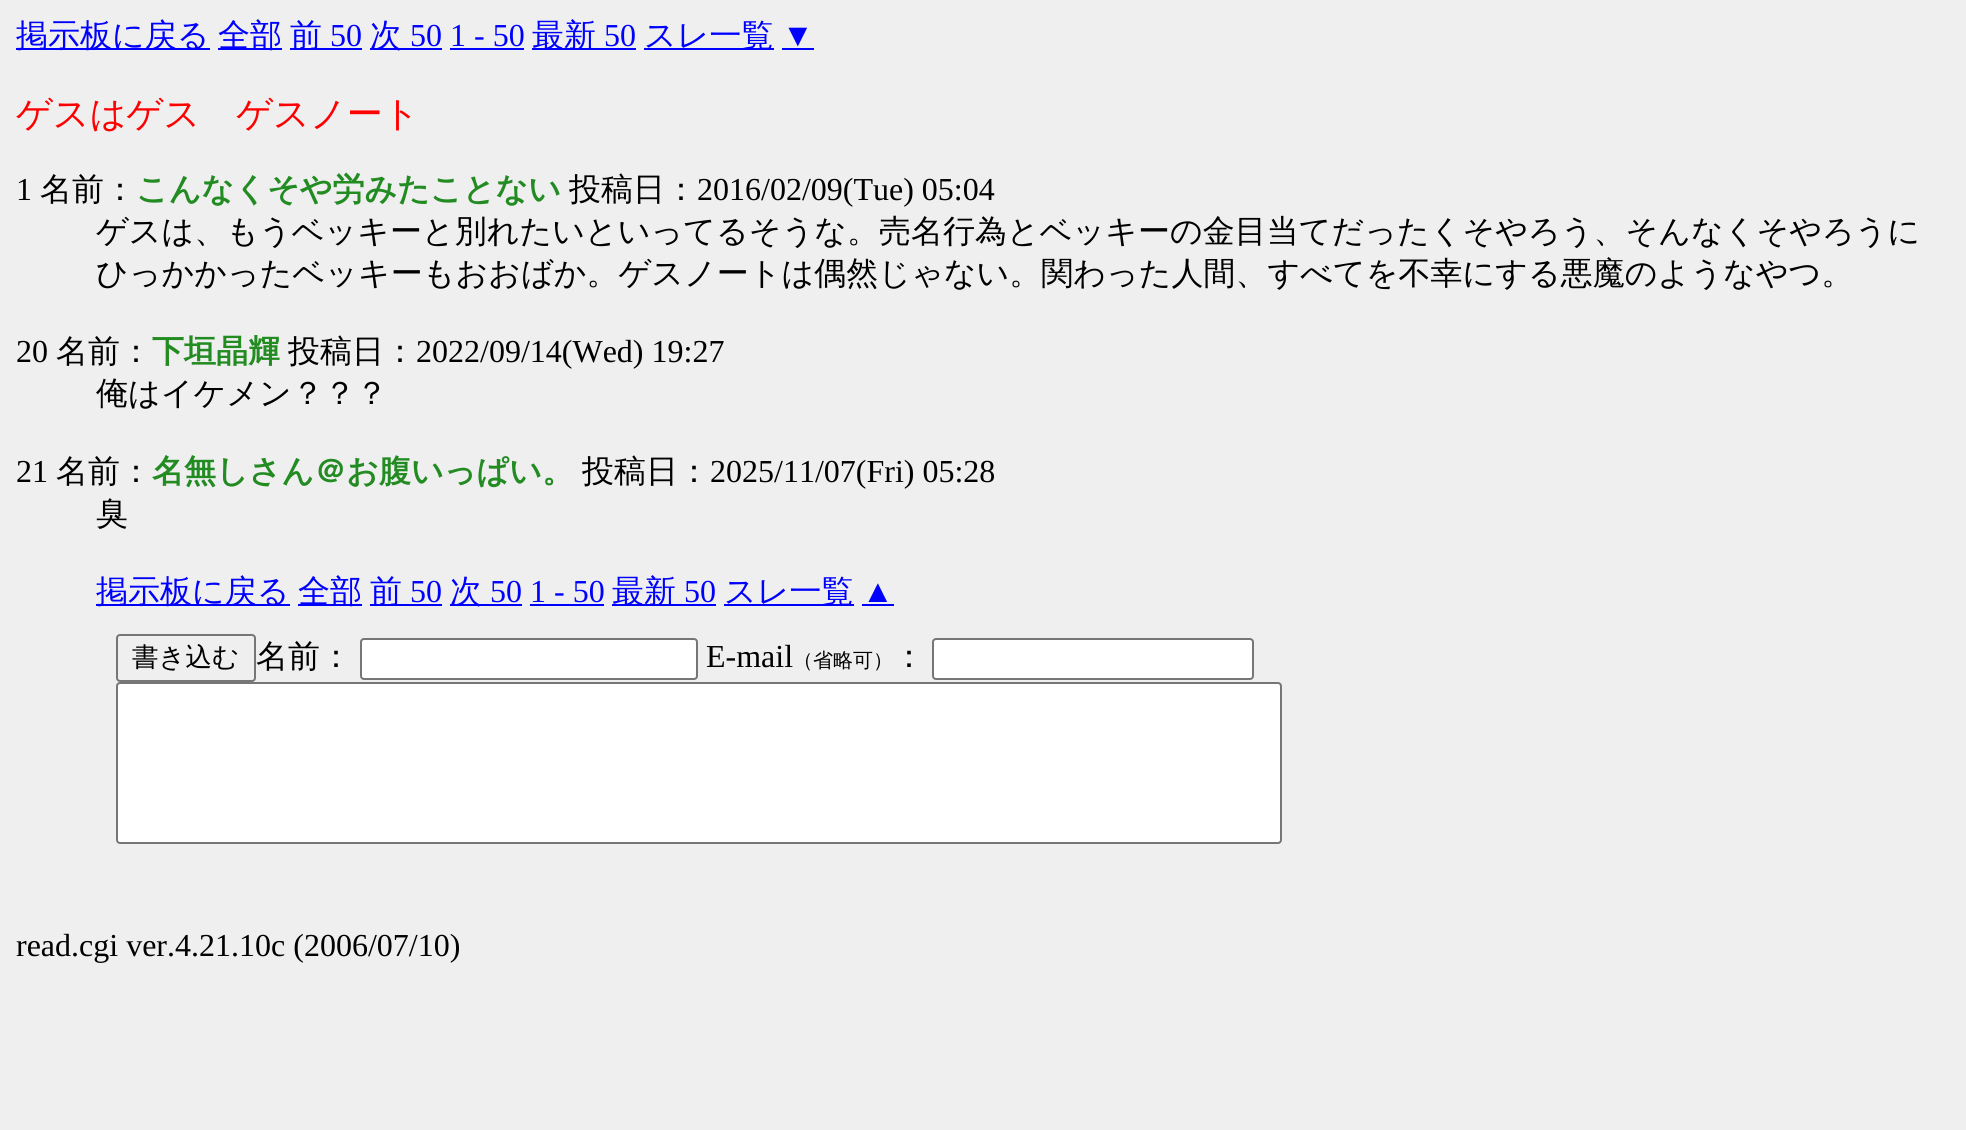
#include <cairo/cairo.h>
#include <math.h>
#include <stddef.h>


static void rounded_rect(cairo_t *cr, double x, double y, double w, double h, double r) {
  cairo_new_sub_path(cr);
  cairo_arc(cr, x + w - r, y + h - r, r, 0, M_PI / 2);
  cairo_arc(cr, x + r, y + h - r, r, M_PI / 2, M_PI);
  cairo_arc(cr, x + r, y + r, r, M_PI, 1.5 * M_PI);
  cairo_arc(cr, x + w - r, y + r, r, 1.5 * M_PI, 2 * M_PI);
  cairo_close_path(cr);
}

static void draw(cairo_t *cr) {
  cairo_set_source_rgb(cr, 239 / 255.0, 239 / 255.0, 239 / 255.0);
  cairo_paint(cr);
  cairo_set_source_rgb(cr, 0, 0, 1);
  cairo_rectangle(cr, 16, 48, 194, 2);
  cairo_fill(cr);
  cairo_rectangle(cr, 218, 48, 64, 2);
  cairo_fill(cr);
  cairo_rectangle(cr, 290, 48, 72, 2);
  cairo_fill(cr);
  cairo_rectangle(cr, 370, 48, 72, 2);
  cairo_fill(cr);
  cairo_rectangle(cr, 532, 48, 104, 2);
  cairo_fill(cr);
  cairo_rectangle(cr, 644, 48, 130, 2);
  cairo_fill(cr);
  cairo_rectangle(cr, 782, 48, 32, 2);
  cairo_fill(cr);
  cairo_rectangle(cr, 450, 48, 74, 2);
  cairo_fill(cr);
  cairo_rectangle(cr, 96, 604, 194, 2);
  cairo_fill(cr);
  cairo_rectangle(cr, 298, 604, 64, 2);
  cairo_fill(cr);
  cairo_rectangle(cr, 370, 604, 72, 2);
  cairo_fill(cr);
  cairo_rectangle(cr, 450, 604, 72, 2);
  cairo_fill(cr);
  cairo_rectangle(cr, 612, 604, 104, 2);
  cairo_fill(cr);
  cairo_rectangle(cr, 724, 604, 130, 2);
  cairo_fill(cr);
  cairo_rectangle(cr, 862, 604, 32, 2);
  cairo_fill(cr);
  cairo_rectangle(cr, 530, 604, 74, 2);
  cairo_fill(cr);
  rounded_rect(cr, 117, 635, 138, 46, 3);
  cairo_set_source_rgb(cr, 118 / 255.0, 118 / 255.0, 118 / 255.0);
  cairo_stroke(cr);
  cairo_set_source_rgb(cr, 1, 1, 1);
  rounded_rect(cr, 361, 639, 336, 40, 3);
  cairo_fill_preserve(cr);
  cairo_set_source_rgb(cr, 118 / 255.0, 118 / 255.0, 118 / 255.0);
  cairo_stroke(cr);
  cairo_set_source_rgb(cr, 1, 1, 1);
  rounded_rect(cr, 933, 639, 320, 40, 3);
  cairo_fill_preserve(cr);
  cairo_set_source_rgb(cr, 118 / 255.0, 118 / 255.0, 118 / 255.0);
  cairo_stroke(cr);
  cairo_set_source_rgb(cr, 1, 1, 1);
  rounded_rect(cr, 117, 683, 1164, 160, 3);
  cairo_fill_preserve(cr);
  cairo_set_source_rgb(cr, 118 / 255.0, 118 / 255.0, 118 / 255.0);
  cairo_stroke(cr);
  cairo_select_font_face(cr, "WenQuanYi Zen Hei Medium", CAIRO_FONT_SLANT_NORMAL, CAIRO_FONT_WEIGHT_NORMAL);
  cairo_set_font_size(cr, 32);
  cairo_set_source_rgb(cr, 0, 0, 1);
  cairo_move_to(cr, 16, 46);
  cairo_show_text(cr, "掲示板に戻る");
  cairo_move_to(cr, 218, 46);
  cairo_show_text(cr, "全部");
  cairo_move_to(cr, 290, 46);
  cairo_show_text(cr, "前");
  cairo_select_font_face(cr, "Liberation Serif", CAIRO_FONT_SLANT_NORMAL, CAIRO_FONT_WEIGHT_NORMAL);
  cairo_move_to(cr, 330, 46);
  cairo_show_text(cr, "50");
  cairo_select_font_face(cr, "WenQuanYi Zen Hei Medium", CAIRO_FONT_SLANT_NORMAL, CAIRO_FONT_WEIGHT_NORMAL);
  cairo_move_to(cr, 370, 46);
  cairo_show_text(cr, "次");
  cairo_select_font_face(cr, "Liberation Serif", CAIRO_FONT_SLANT_NORMAL, CAIRO_FONT_WEIGHT_NORMAL);
  cairo_move_to(cr, 410, 46);
  cairo_show_text(cr, "50 1 - 50");
  cairo_select_font_face(cr, "WenQuanYi Zen Hei Medium", CAIRO_FONT_SLANT_NORMAL, CAIRO_FONT_WEIGHT_NORMAL);
  cairo_move_to(cr, 532, 46);
  cairo_show_text(cr, "最新");
  cairo_select_font_face(cr, "Liberation Serif", CAIRO_FONT_SLANT_NORMAL, CAIRO_FONT_WEIGHT_NORMAL);
  cairo_move_to(cr, 604, 46);
  cairo_show_text(cr, "50");
  cairo_select_font_face(cr, "WenQuanYi Zen Hei Medium", CAIRO_FONT_SLANT_NORMAL, CAIRO_FONT_WEIGHT_NORMAL);
  cairo_move_to(cr, 644, 46);
  cairo_show_text(cr, "スレ一覧");
  cairo_select_font_face(cr, "Liberation Serif", CAIRO_FONT_SLANT_NORMAL, CAIRO_FONT_WEIGHT_NORMAL);
  cairo_move_to(cr, 782, 46);
  cairo_show_text(cr, "▼");
  cairo_select_font_face(cr, "WenQuanYi Zen Hei Medium", CAIRO_FONT_SLANT_NORMAL, CAIRO_FONT_WEIGHT_NORMAL);
  cairo_set_font_size(cr, 36);
  cairo_set_source_rgb(cr, 1, 0, 0);
  cairo_move_to(cr, 16, 126);
  cairo_show_text(cr, "ゲスはゲス　ゲスノート");
  cairo_select_font_face(cr, "Liberation Serif", CAIRO_FONT_SLANT_NORMAL, CAIRO_FONT_WEIGHT_NORMAL);
  cairo_set_font_size(cr, 32);
  cairo_set_source_rgb(cr, 0, 0, 0);
  cairo_move_to(cr, 16, 200);
  cairo_show_text(cr, "1");
  cairo_select_font_face(cr, "WenQuanYi Zen Hei Medium", CAIRO_FONT_SLANT_NORMAL, CAIRO_FONT_WEIGHT_NORMAL);
  cairo_move_to(cr, 40, 200);
  cairo_show_text(cr, "名前：");
  cairo_select_font_face(cr, "WenQuanYi Zen Hei", CAIRO_FONT_SLANT_NORMAL, CAIRO_FONT_WEIGHT_BOLD);
  cairo_set_source_rgb(cr, 34 / 255.0, 139 / 255.0, 34 / 255.0);
  cairo_move_to(cr, 136, 200);
  cairo_show_text(cr, "こんなくそや労みたことない");
  cairo_select_font_face(cr, "WenQuanYi Zen Hei Medium", CAIRO_FONT_SLANT_NORMAL, CAIRO_FONT_WEIGHT_NORMAL);
  cairo_set_source_rgb(cr, 0, 0, 0);
  cairo_move_to(cr, 569, 200);
  cairo_show_text(cr, "投稿日：");
  cairo_select_font_face(cr, "Liberation Serif", CAIRO_FONT_SLANT_NORMAL, CAIRO_FONT_WEIGHT_NORMAL);
  cairo_move_to(cr, 697, 200);
  cairo_show_text(cr, "2016/02/09(Tue) 05:04");
  cairo_select_font_face(cr, "WenQuanYi Zen Hei Medium", CAIRO_FONT_SLANT_NORMAL, CAIRO_FONT_WEIGHT_NORMAL);
  cairo_move_to(cr, 96, 242);
  cairo_show_text(cr, "ゲスは、もうベッキーと別れたいといってるそうな。売名行為とベッキーの金目当てだったくそやろう、そんなくそやろうに");
  cairo_move_to(cr, 96, 284);
  cairo_show_text(cr, "ひっかかったベッキーもおおばか。ゲスノートは偶然じゃない。関わった人間、すべてを不幸にする悪魔のようなやつ。");
  cairo_select_font_face(cr, "Liberation Serif", CAIRO_FONT_SLANT_NORMAL, CAIRO_FONT_WEIGHT_NORMAL);
  cairo_move_to(cr, 16, 362);
  cairo_show_text(cr, "20");
  cairo_select_font_face(cr, "WenQuanYi Zen Hei Medium", CAIRO_FONT_SLANT_NORMAL, CAIRO_FONT_WEIGHT_NORMAL);
  cairo_move_to(cr, 56, 362);
  cairo_show_text(cr, "名前：");
  cairo_select_font_face(cr, "WenQuanYi Zen Hei", CAIRO_FONT_SLANT_NORMAL, CAIRO_FONT_WEIGHT_BOLD);
  cairo_set_source_rgb(cr, 34 / 255.0, 139 / 255.0, 34 / 255.0);
  cairo_move_to(cr, 152, 362);
  cairo_show_text(cr, "下垣晶輝");
  cairo_select_font_face(cr, "WenQuanYi Zen Hei Medium", CAIRO_FONT_SLANT_NORMAL, CAIRO_FONT_WEIGHT_NORMAL);
  cairo_set_source_rgb(cr, 0, 0, 0);
  cairo_move_to(cr, 288, 362);
  cairo_show_text(cr, "投稿日：");
  cairo_select_font_face(cr, "Liberation Serif", CAIRO_FONT_SLANT_NORMAL, CAIRO_FONT_WEIGHT_NORMAL);
  cairo_move_to(cr, 416, 362);
  cairo_show_text(cr, "2022/09/14(Wed) 19:27");
  cairo_select_font_face(cr, "WenQuanYi Zen Hei Medium", CAIRO_FONT_SLANT_NORMAL, CAIRO_FONT_WEIGHT_NORMAL);
  cairo_move_to(cr, 96, 404);
  cairo_show_text(cr, "俺はイケメン？？？");
  cairo_select_font_face(cr, "Liberation Serif", CAIRO_FONT_SLANT_NORMAL, CAIRO_FONT_WEIGHT_NORMAL);
  cairo_move_to(cr, 16, 482);
  cairo_show_text(cr, "21");
  cairo_select_font_face(cr, "WenQuanYi Zen Hei Medium", CAIRO_FONT_SLANT_NORMAL, CAIRO_FONT_WEIGHT_NORMAL);
  cairo_move_to(cr, 56, 482);
  cairo_show_text(cr, "名前：");
  cairo_select_font_face(cr, "WenQuanYi Zen Hei", CAIRO_FONT_SLANT_NORMAL, CAIRO_FONT_WEIGHT_BOLD);
  cairo_set_source_rgb(cr, 34 / 255.0, 139 / 255.0, 34 / 255.0);
  cairo_move_to(cr, 152, 482);
  cairo_show_text(cr, "名無しさん＠お腹いっぱい。");
  cairo_select_font_face(cr, "WenQuanYi Zen Hei Medium", CAIRO_FONT_SLANT_NORMAL, CAIRO_FONT_WEIGHT_NORMAL);
  cairo_set_source_rgb(cr, 0, 0, 0);
  cairo_move_to(cr, 582, 482);
  cairo_show_text(cr, "投稿日：");
  cairo_select_font_face(cr, "Liberation Serif", CAIRO_FONT_SLANT_NORMAL, CAIRO_FONT_WEIGHT_NORMAL);
  cairo_move_to(cr, 710, 482);
  cairo_show_text(cr, "2025/11/07(Fri) 05:28");
  cairo_select_font_face(cr, "WenQuanYi Zen Hei Medium", CAIRO_FONT_SLANT_NORMAL, CAIRO_FONT_WEIGHT_NORMAL);
  cairo_move_to(cr, 96, 524);
  cairo_show_text(cr, "臭");
  cairo_set_source_rgb(cr, 0, 0, 1);
  cairo_move_to(cr, 96, 602);
  cairo_show_text(cr, "掲示板に戻る");
  cairo_move_to(cr, 298, 602);
  cairo_show_text(cr, "全部");
  cairo_move_to(cr, 370, 602);
  cairo_show_text(cr, "前");
  cairo_select_font_face(cr, "Liberation Serif", CAIRO_FONT_SLANT_NORMAL, CAIRO_FONT_WEIGHT_NORMAL);
  cairo_move_to(cr, 410, 602);
  cairo_show_text(cr, "50");
  cairo_select_font_face(cr, "WenQuanYi Zen Hei Medium", CAIRO_FONT_SLANT_NORMAL, CAIRO_FONT_WEIGHT_NORMAL);
  cairo_move_to(cr, 450, 602);
  cairo_show_text(cr, "次");
  cairo_select_font_face(cr, "Liberation Serif", CAIRO_FONT_SLANT_NORMAL, CAIRO_FONT_WEIGHT_NORMAL);
  cairo_move_to(cr, 490, 602);
  cairo_show_text(cr, "50 1 - 50");
  cairo_select_font_face(cr, "WenQuanYi Zen Hei Medium", CAIRO_FONT_SLANT_NORMAL, CAIRO_FONT_WEIGHT_NORMAL);
  cairo_move_to(cr, 612, 602);
  cairo_show_text(cr, "最新");
  cairo_select_font_face(cr, "Liberation Serif", CAIRO_FONT_SLANT_NORMAL, CAIRO_FONT_WEIGHT_NORMAL);
  cairo_move_to(cr, 684, 602);
  cairo_show_text(cr, "50");
  cairo_select_font_face(cr, "WenQuanYi Zen Hei Medium", CAIRO_FONT_SLANT_NORMAL, CAIRO_FONT_WEIGHT_NORMAL);
  cairo_move_to(cr, 724, 602);
  cairo_show_text(cr, "スレ一覧");
  cairo_select_font_face(cr, "Liberation Serif", CAIRO_FONT_SLANT_NORMAL, CAIRO_FONT_WEIGHT_NORMAL);
  cairo_move_to(cr, 862, 602);
  cairo_show_text(cr, "▲");
  cairo_select_font_face(cr, "WenQuanYi Zen Hei Medium", CAIRO_FONT_SLANT_NORMAL, CAIRO_FONT_WEIGHT_NORMAL);
  cairo_set_font_size(cr, 26.5);
  cairo_set_source_rgb(cr, 0, 0, 0);
  cairo_move_to(cr, 132, 666);
  cairo_show_text(cr, "書き込む");
  cairo_set_font_size(cr, 32);
  cairo_move_to(cr, 256, 667);
  cairo_show_text(cr, "名前：");
  cairo_select_font_face(cr, "Liberation Serif", CAIRO_FONT_SLANT_NORMAL, CAIRO_FONT_WEIGHT_NORMAL);
  cairo_move_to(cr, 706, 667);
  cairo_show_text(cr, "E-mail");
  cairo_select_font_face(cr, "WenQuanYi Zen Hei Medium", CAIRO_FONT_SLANT_NORMAL, CAIRO_FONT_WEIGHT_NORMAL);
  cairo_set_font_size(cr, 20);
  cairo_move_to(cr, 793, 667);
  cairo_show_text(cr, "（省略可）");
  cairo_set_font_size(cr, 32);
  cairo_move_to(cr, 893, 667);
  cairo_show_text(cr, "：");
  cairo_select_font_face(cr, "Liberation Serif", CAIRO_FONT_SLANT_NORMAL, CAIRO_FONT_WEIGHT_NORMAL);
  cairo_move_to(cr, 16, 956);
  cairo_show_text(cr, "read.cgi ver.4.21.10c (2006/07/10)");
}

int main(void) {
  cairo_surface_t *surface = cairo_image_surface_create(CAIRO_FORMAT_RGB24, 1966, 1130);
  cairo_t *cr = cairo_create(surface);
  cairo_font_options_t *options = cairo_font_options_create();
  cairo_font_options_set_hint_metrics(options, CAIRO_HINT_METRICS_OFF);
  cairo_font_options_set_hint_style(options, CAIRO_HINT_STYLE_NONE);
  cairo_set_font_options(cr, options);
  cairo_set_miter_limit(cr, 4);
  draw(cr);
  cairo_surface_write_to_png(surface, "out.png");
  cairo_font_options_destroy(options);
  cairo_destroy(cr);
  cairo_surface_destroy(surface);
  return 0;
}
